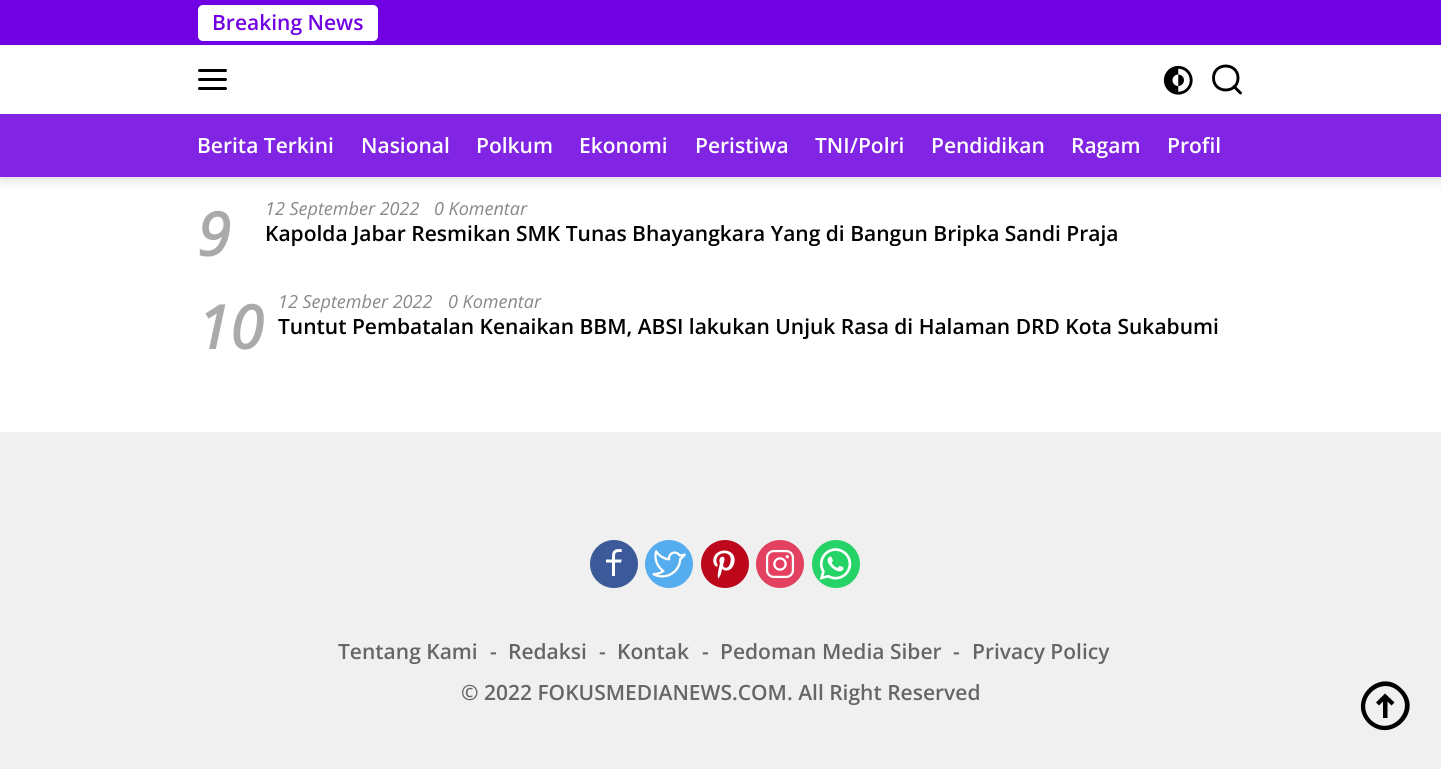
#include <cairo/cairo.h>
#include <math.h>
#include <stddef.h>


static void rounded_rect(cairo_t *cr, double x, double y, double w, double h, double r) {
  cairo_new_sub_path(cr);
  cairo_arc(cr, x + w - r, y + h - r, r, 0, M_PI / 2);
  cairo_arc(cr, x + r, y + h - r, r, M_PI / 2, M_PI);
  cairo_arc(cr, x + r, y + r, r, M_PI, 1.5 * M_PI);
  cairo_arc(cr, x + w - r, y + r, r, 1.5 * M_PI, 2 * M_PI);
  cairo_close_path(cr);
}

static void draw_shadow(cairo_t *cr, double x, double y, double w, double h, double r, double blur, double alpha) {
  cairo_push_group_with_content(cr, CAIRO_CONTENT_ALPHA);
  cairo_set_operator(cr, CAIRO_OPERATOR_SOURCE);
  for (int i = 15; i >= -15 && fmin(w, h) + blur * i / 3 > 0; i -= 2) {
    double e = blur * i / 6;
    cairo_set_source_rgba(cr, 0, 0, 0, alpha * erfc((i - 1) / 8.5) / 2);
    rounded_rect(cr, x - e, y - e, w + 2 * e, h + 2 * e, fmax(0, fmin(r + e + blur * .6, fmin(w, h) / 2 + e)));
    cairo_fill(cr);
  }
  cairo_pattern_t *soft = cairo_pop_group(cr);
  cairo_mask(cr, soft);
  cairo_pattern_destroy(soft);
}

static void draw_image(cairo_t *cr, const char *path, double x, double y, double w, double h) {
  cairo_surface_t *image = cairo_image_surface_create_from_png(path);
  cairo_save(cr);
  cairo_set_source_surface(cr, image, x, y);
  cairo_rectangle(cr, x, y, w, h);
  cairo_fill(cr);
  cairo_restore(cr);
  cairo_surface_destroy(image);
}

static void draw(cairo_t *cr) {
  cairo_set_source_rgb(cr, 1, 1, 1);
  cairo_paint(cr);
  cairo_set_source_rgb(cr, 0, 0, 0);
  draw_shadow(cr, 0, 0, 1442, 177, 0, 7.5, 0.2);
  cairo_set_source_rgb(cr, 1, 1, 1);
  cairo_rectangle(cr, 0, 45, 1441, 69);
  cairo_fill(cr);
  cairo_set_source_rgb(cr, 113 / 255.0, 0, 226 / 255.0);
  cairo_rectangle(cr, 0, 0, 1441, 45);
  cairo_fill(cr);
  cairo_set_source_rgb(cr, 1, 1, 1);
  rounded_rect(cr, 198, 5, 180, 36, 5);
  cairo_fill(cr);
  cairo_set_source_rgb(cr, 0, 0, 0);
  rounded_rect(cr, 198, 69, 29, 3, 1.5);
  cairo_fill(cr);
  rounded_rect(cr, 198, 78, 29, 3, 1.5);
  cairo_fill(cr);
  rounded_rect(cr, 198, 87, 29, 3, 1.5);
  cairo_fill(cr);
  draw_image(cr, "images/1.png", 1163, 65, 30, 30);
  cairo_new_path(cr);
  cairo_move_to(cr, 1240.5, 93);
  cairo_line_to(cr, 1234, 86.5);
  cairo_move_to(cr, 1238, 78);
  cairo_curve_to(cr, 1238, 94, 1213.5, 94, 1213.5, 78);
  cairo_curve_to(cr, 1213.5, 62, 1238, 62, 1238, 78);
  cairo_close_path(cr);
  cairo_set_line_width(cr, 2.9);
  cairo_set_line_cap(cr, CAIRO_LINE_CAP_ROUND);
  cairo_stroke(cr);
  cairo_set_source_rgb(cr, 130 / 255.0, 36 / 255.0, 227 / 255.0);
  cairo_rectangle(cr, 0, 114, 1441, 63);
  cairo_fill(cr);
  cairo_set_source_rgb(cr, 240 / 255.0, 240 / 255.0, 240 / 255.0);
  cairo_rectangle(cr, 0, 432, 1441, 337);
  cairo_fill(cr);
  cairo_set_source_rgb(cr, 60 / 255.0, 90 / 255.0, 153 / 255.0);
  cairo_arc(cr, 614, 564, 24, 0, 2 * M_PI);
  cairo_fill(cr);
  draw_image(cr, "images/2.png", 606, 549, 16, 27);
  cairo_set_source_rgb(cr, 85 / 255.0, 172 / 255.0, 238 / 255.0);
  cairo_arc(cr, 669, 564, 24, 0, 2 * M_PI);
  cairo_fill(cr);
  draw_image(cr, "images/3.png", 652, 550, 34, 28);
  cairo_set_source_rgb(cr, 189 / 255.0, 8 / 255.0, 28 / 255.0);
  cairo_arc(cr, 725, 564, 24, 0, 2 * M_PI);
  cairo_fill(cr);
  draw_image(cr, "images/4.png", 713, 550, 22, 29);
  cairo_set_source_rgb(cr, 228 / 255.0, 64 / 255.0, 95 / 255.0);
  cairo_arc(cr, 780, 564, 24, 0, 2 * M_PI);
  cairo_fill(cr);
  draw_image(cr, "images/5.png", 765, 549, 30, 30);
  cairo_set_source_rgb(cr, 37 / 255.0, 211 / 255.0, 102 / 255.0);
  cairo_arc(cr, 836, 564, 24, 0, 2 * M_PI);
  cairo_fill(cr);
  draw_image(cr, "images/6.png", 819, 548, 33, 32);
  cairo_set_source_rgb(cr, 0, 0, 0);
  cairo_new_path(cr);
  cairo_move_to(cr, 1391.5, 705.5);
  cairo_line_to(cr, 1394.5, 702.5);
  cairo_line_to(cr, 1385, 693.5);
  cairo_line_to(cr, 1376, 702.5);
  cairo_line_to(cr, 1379, 705.5);
  cairo_line_to(cr, 1383, 701.5);
  cairo_line_to(cr, 1383, 718);
  cairo_line_to(cr, 1387.5, 718);
  cairo_line_to(cr, 1387.5, 701.5);
  cairo_close_path(cr);
  cairo_fill(cr);
  cairo_set_fill_rule(cr, CAIRO_FILL_RULE_EVEN_ODD);
  cairo_new_path(cr);
  cairo_move_to(cr, 1402, 689);
  cairo_curve_to(cr, 1380, 666, 1346, 700, 1368, 723);
  cairo_curve_to(cr, 1391, 745, 1425, 711, 1402, 689);
  cairo_close_path(cr);
  cairo_move_to(cr, 1399, 692);
  cairo_curve_to(cr, 1381, 674, 1353, 701, 1371, 720);
  cairo_curve_to(cr, 1390, 738, 1417, 710, 1399, 692);
  cairo_close_path(cr);
  cairo_fill(cr);
  cairo_select_font_face(cr, "Open Sans SemiBold", CAIRO_FONT_SLANT_NORMAL, CAIRO_FONT_WEIGHT_NORMAL);
  cairo_set_font_size(cr, 21);
  cairo_set_source_rgb(cr, 113 / 255.0, 0, 226 / 255.0);
  cairo_move_to(cr, 212, 30);
  cairo_show_text(cr, "Breaking News");
  cairo_set_source_rgb(cr, 1, 1, 1);
  cairo_move_to(cr, 197, 153);
  cairo_show_text(cr, "Berita Terkini");
  cairo_move_to(cr, 361, 153);
  cairo_show_text(cr, "Nasional");
  cairo_move_to(cr, 476, 153);
  cairo_show_text(cr, "Polkum");
  cairo_move_to(cr, 579, 153);
  cairo_show_text(cr, "Ekonomi");
  cairo_move_to(cr, 695, 153);
  cairo_show_text(cr, "Peristiwa");
  cairo_move_to(cr, 815, 153);
  cairo_show_text(cr, "TNI/Polri");
  cairo_move_to(cr, 931, 153);
  cairo_show_text(cr, "Pendidikan");
  cairo_move_to(cr, 1071, 153);
  cairo_show_text(cr, "Ragam");
  cairo_move_to(cr, 1167, 153);
  cairo_show_text(cr, "Profil");
  cairo_select_font_face(cr, "Open Sans", CAIRO_FONT_SLANT_ITALIC, CAIRO_FONT_WEIGHT_BOLD);
  cairo_set_font_size(cr, 60);
  cairo_set_source_rgb(cr, 170 / 255.0, 170 / 255.0, 170 / 255.0);
  cairo_move_to(cr, 197, 256);
  cairo_show_text(cr, "9");
  cairo_select_font_face(cr, "Open Sans", CAIRO_FONT_SLANT_ITALIC, CAIRO_FONT_WEIGHT_NORMAL);
  cairo_set_font_size(cr, 18);
  cairo_set_source_rgb(cr, 136 / 255.0, 136 / 255.0, 136 / 255.0);
  cairo_move_to(cr, 265, 215);
  cairo_show_text(cr, "12 September 2022");
  cairo_move_to(cr, 434, 215);
  cairo_show_text(cr, "0 Komentar");
  cairo_select_font_face(cr, "Open Sans SemiBold", CAIRO_FONT_SLANT_NORMAL, CAIRO_FONT_WEIGHT_NORMAL);
  cairo_set_font_size(cr, 21);
  cairo_set_source_rgb(cr, 0, 0, 0);
  cairo_move_to(cr, 265, 241);
  cairo_show_text(cr, "Kapolda Jabar Resmikan SMK Tunas Bhayangkara Yang di Bangun Bripka Sandi Praja");
  cairo_select_font_face(cr, "Open Sans", CAIRO_FONT_SLANT_ITALIC, CAIRO_FONT_WEIGHT_BOLD);
  cairo_set_font_size(cr, 60);
  cairo_set_source_rgb(cr, 170 / 255.0, 170 / 255.0, 170 / 255.0);
  cairo_move_to(cr, 197, 349);
  cairo_show_text(cr, "10");
  cairo_select_font_face(cr, "Open Sans", CAIRO_FONT_SLANT_ITALIC, CAIRO_FONT_WEIGHT_NORMAL);
  cairo_set_font_size(cr, 18);
  cairo_set_source_rgb(cr, 136 / 255.0, 136 / 255.0, 136 / 255.0);
  cairo_move_to(cr, 278, 308);
  cairo_show_text(cr, "12 September 2022");
  cairo_move_to(cr, 448, 308);
  cairo_show_text(cr, "0 Komentar");
  cairo_select_font_face(cr, "Open Sans SemiBold", CAIRO_FONT_SLANT_NORMAL, CAIRO_FONT_WEIGHT_NORMAL);
  cairo_set_font_size(cr, 21);
  cairo_set_source_rgb(cr, 0, 0, 0);
  cairo_move_to(cr, 278, 334);
  cairo_show_text(cr, "Tuntut Pembatalan Kenaikan BBM, ABSI lakukan Unjuk Rasa di Halaman DRD Kota Sukabumi");
  cairo_set_source_rgb(cr, 102 / 255.0, 102 / 255.0, 102 / 255.0);
  cairo_move_to(cr, 338, 659);
  cairo_show_text(cr, "Tentang Kami");
  cairo_move_to(cr, 490, 659);
  cairo_show_text(cr, "-");
  cairo_move_to(cr, 508, 659);
  cairo_show_text(cr, "Redaksi");
  cairo_move_to(cr, 599, 659);
  cairo_show_text(cr, "-");
  cairo_move_to(cr, 617, 659);
  cairo_show_text(cr, "Kontak");
  cairo_move_to(cr, 702, 659);
  cairo_show_text(cr, "-");
  cairo_move_to(cr, 720, 659);
  cairo_show_text(cr, "Pedoman Media Siber");
  cairo_move_to(cr, 953, 659);
  cairo_show_text(cr, "-");
  cairo_move_to(cr, 972, 659);
  cairo_show_text(cr, "Privacy Policy");
  cairo_move_to(cr, 461, 700);
  cairo_show_text(cr, "© 2022 FOKUSMEDIANEWS.COM. All Right Reserved");
}

int main(void) {
  cairo_surface_t *surface = cairo_image_surface_create(CAIRO_FORMAT_RGB24, 1441, 769);
  cairo_t *cr = cairo_create(surface);
  cairo_font_options_t *options = cairo_font_options_create();
  cairo_font_options_set_hint_metrics(options, CAIRO_HINT_METRICS_OFF);
  cairo_font_options_set_hint_style(options, CAIRO_HINT_STYLE_NONE);
  cairo_set_font_options(cr, options);
  cairo_set_miter_limit(cr, 4);
  draw(cr);
  cairo_surface_write_to_png(surface, "out.png");
  cairo_font_options_destroy(options);
  cairo_destroy(cr);
  cairo_surface_destroy(surface);
  return 0;
}
